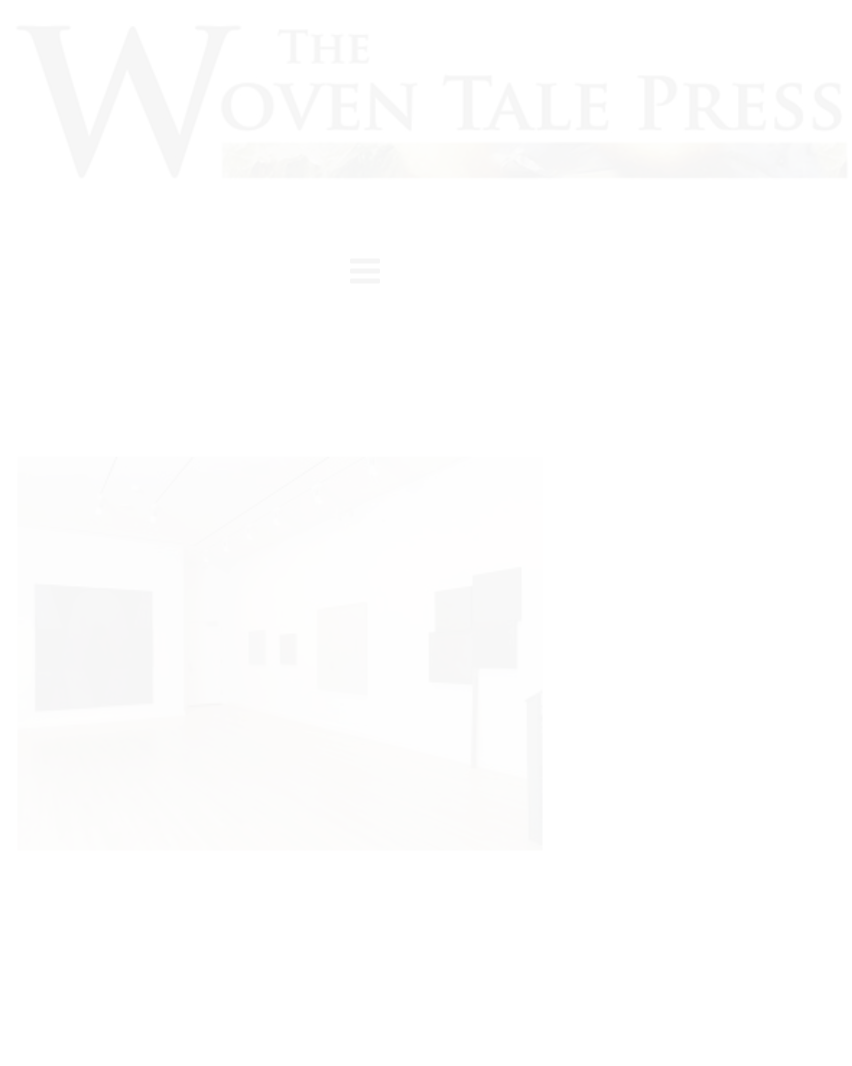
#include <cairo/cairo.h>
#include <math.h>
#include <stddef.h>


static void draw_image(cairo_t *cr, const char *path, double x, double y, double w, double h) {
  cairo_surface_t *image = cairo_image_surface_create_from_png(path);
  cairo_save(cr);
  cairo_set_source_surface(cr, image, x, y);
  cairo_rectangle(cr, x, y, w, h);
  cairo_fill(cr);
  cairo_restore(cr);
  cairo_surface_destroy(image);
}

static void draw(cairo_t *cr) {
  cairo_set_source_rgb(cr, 1, 1, 1);
  cairo_paint(cr);
  draw_image(cr, "images/1.png", 12, 17, 840, 176);
  draw_image(cr, "images/2.png", 350, 258, 30, 26);
  draw_image(cr, "images/3.png", 17, 456, 526, 395);
}

int main(void) {
  cairo_surface_t *surface = cairo_image_surface_create(CAIRO_FORMAT_RGB24, 852, 1066);
  cairo_t *cr = cairo_create(surface);
  cairo_font_options_t *options = cairo_font_options_create();
  cairo_font_options_set_hint_metrics(options, CAIRO_HINT_METRICS_OFF);
  cairo_font_options_set_hint_style(options, CAIRO_HINT_STYLE_NONE);
  cairo_set_font_options(cr, options);
  cairo_set_miter_limit(cr, 4);
  draw(cr);
  cairo_surface_write_to_png(surface, "out.png");
  cairo_font_options_destroy(options);
  cairo_destroy(cr);
  cairo_surface_destroy(surface);
  return 0;
}
